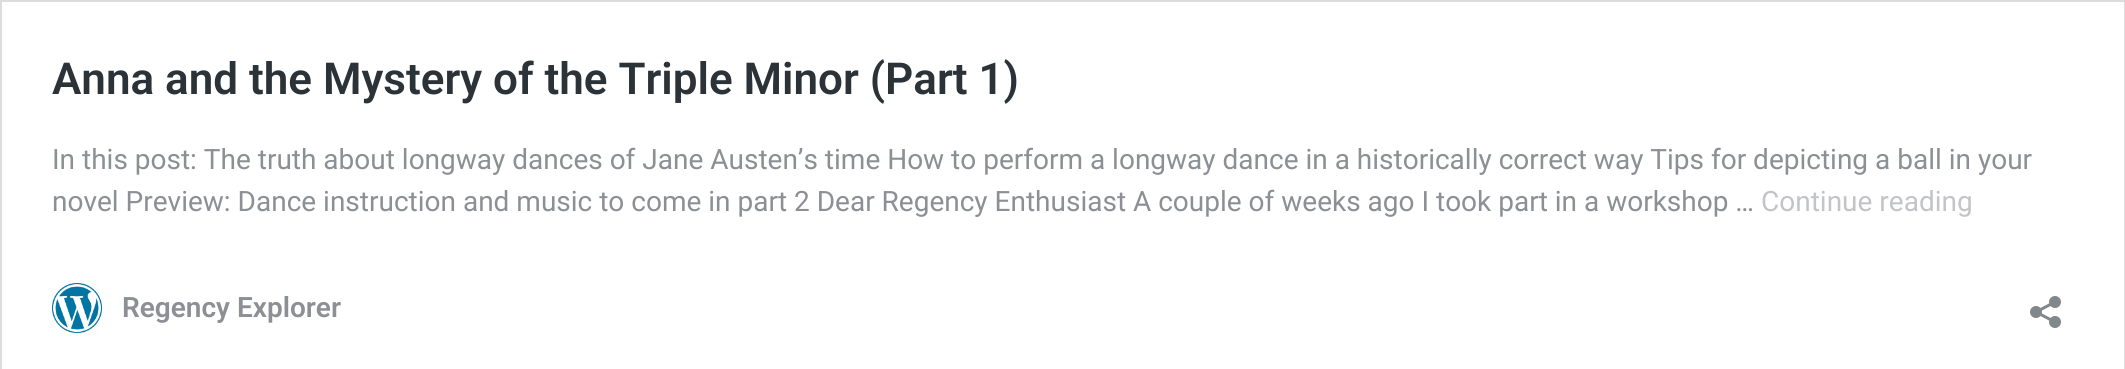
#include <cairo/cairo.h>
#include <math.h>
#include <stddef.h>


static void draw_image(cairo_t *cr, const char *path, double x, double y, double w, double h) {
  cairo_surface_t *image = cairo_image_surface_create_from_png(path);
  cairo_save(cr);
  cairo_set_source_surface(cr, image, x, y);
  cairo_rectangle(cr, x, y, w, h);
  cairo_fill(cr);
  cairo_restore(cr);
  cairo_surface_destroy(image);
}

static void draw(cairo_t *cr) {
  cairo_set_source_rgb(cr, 1, 1, 1);
  cairo_paint(cr);
  cairo_rectangle(cr, 1, 1, 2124, 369);
  cairo_set_source_rgb(cr, 220 / 255.0, 220 / 255.0, 222 / 255.0);
  cairo_stroke(cr);
  draw_image(cr, "images/1.png", 52, 283, 50, 50);
  draw_image(cr, "images/2.png", 2030, 296, 31, 32);
  cairo_select_font_face(cr, "Roboto SemiBold", CAIRO_FONT_SLANT_NORMAL, CAIRO_FONT_WEIGHT_NORMAL);
  cairo_set_font_size(cr, 44);
  cairo_set_source_rgb(cr, 44 / 255.0, 51 / 255.0, 56 / 255.0);
  cairo_move_to(cr, 52, 94);
  cairo_show_text(cr, "Anna and the Mystery of the Triple Minor (Part 1)");
  cairo_select_font_face(cr, "Roboto", CAIRO_FONT_SLANT_NORMAL, CAIRO_FONT_WEIGHT_NORMAL);
  cairo_set_font_size(cr, 28);
  cairo_set_source_rgb(cr, 140 / 255.0, 143 / 255.0, 148 / 255.0);
  cairo_move_to(cr, 52, 169);
  cairo_show_text(cr, "In this post: The truth about longway dances of Jane Austen’s time How to perform a longway dance in a historically correct way Tips for depicting a ball in your");
  cairo_move_to(cr, 52, 211);
  cairo_show_text(cr, "novel Preview: Dance instruction and music to come in part 2 Dear Regency Enthusiast A couple of weeks ago I took part in a workshop …");
  cairo_set_source_rgb(cr, 195 / 255.0, 196 / 255.0, 199 / 255.0);
  cairo_move_to(cr, 1761, 211);
  cairo_show_text(cr, "Continue reading");
  cairo_select_font_face(cr, "Roboto SemiBold", CAIRO_FONT_SLANT_NORMAL, CAIRO_FONT_WEIGHT_NORMAL);
  cairo_set_source_rgb(cr, 140 / 255.0, 143 / 255.0, 148 / 255.0);
  cairo_move_to(cr, 122, 317);
  cairo_show_text(cr, "Regency Explorer");
}

int main(void) {
  cairo_surface_t *surface = cairo_image_surface_create(CAIRO_FORMAT_RGB24, 2125, 369);
  cairo_t *cr = cairo_create(surface);
  cairo_font_options_t *options = cairo_font_options_create();
  cairo_font_options_set_hint_metrics(options, CAIRO_HINT_METRICS_OFF);
  cairo_font_options_set_hint_style(options, CAIRO_HINT_STYLE_NONE);
  cairo_set_font_options(cr, options);
  cairo_set_miter_limit(cr, 4);
  draw(cr);
  cairo_surface_write_to_png(surface, "out.png");
  cairo_font_options_destroy(options);
  cairo_destroy(cr);
  cairo_surface_destroy(surface);
  return 0;
}
